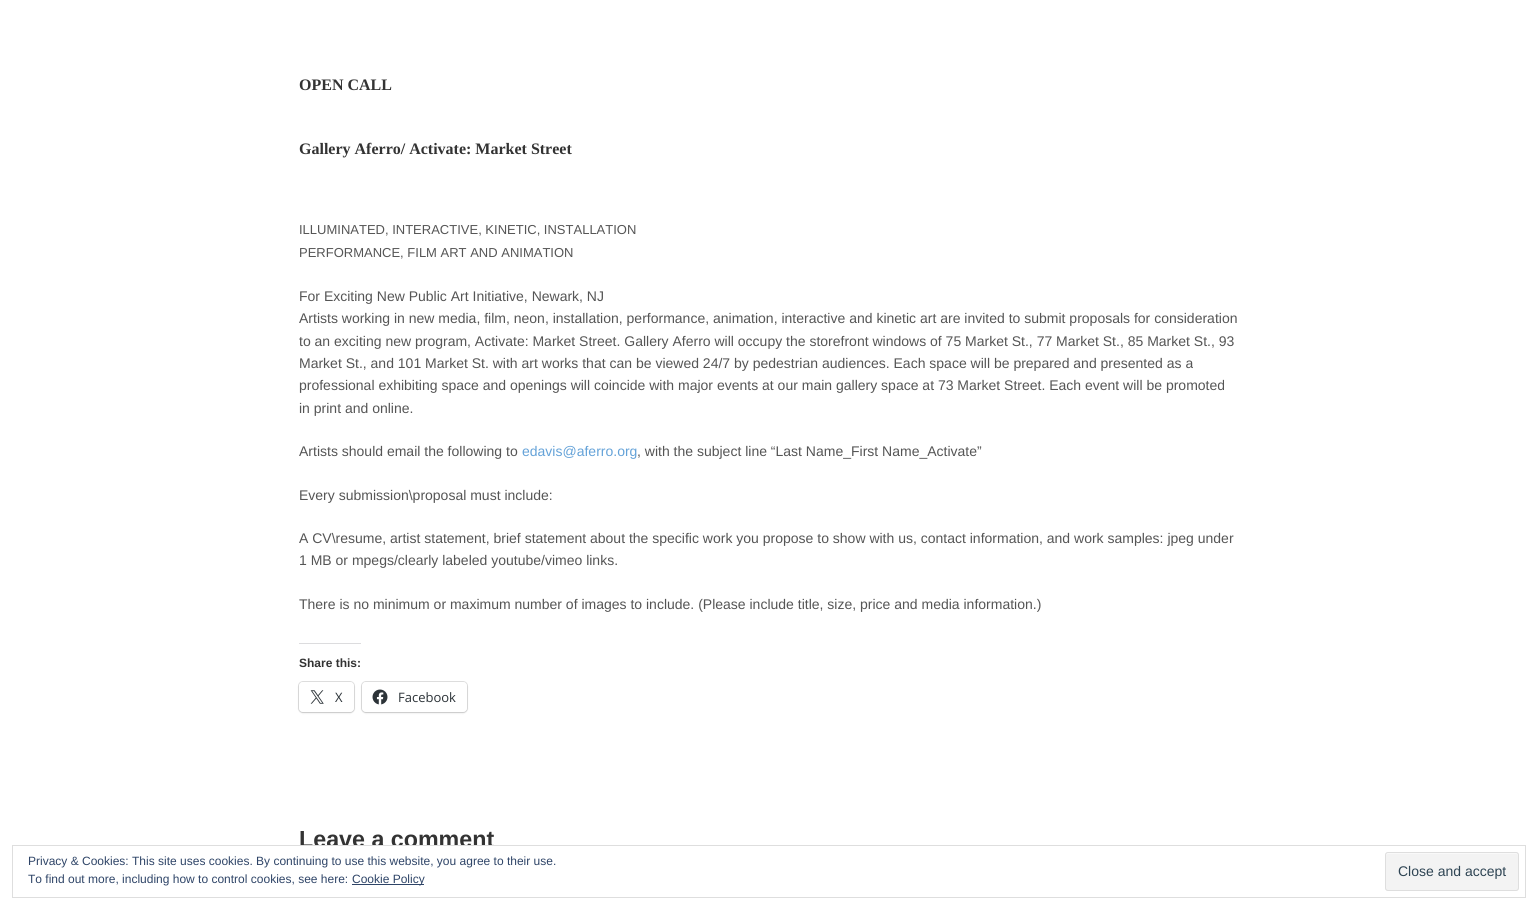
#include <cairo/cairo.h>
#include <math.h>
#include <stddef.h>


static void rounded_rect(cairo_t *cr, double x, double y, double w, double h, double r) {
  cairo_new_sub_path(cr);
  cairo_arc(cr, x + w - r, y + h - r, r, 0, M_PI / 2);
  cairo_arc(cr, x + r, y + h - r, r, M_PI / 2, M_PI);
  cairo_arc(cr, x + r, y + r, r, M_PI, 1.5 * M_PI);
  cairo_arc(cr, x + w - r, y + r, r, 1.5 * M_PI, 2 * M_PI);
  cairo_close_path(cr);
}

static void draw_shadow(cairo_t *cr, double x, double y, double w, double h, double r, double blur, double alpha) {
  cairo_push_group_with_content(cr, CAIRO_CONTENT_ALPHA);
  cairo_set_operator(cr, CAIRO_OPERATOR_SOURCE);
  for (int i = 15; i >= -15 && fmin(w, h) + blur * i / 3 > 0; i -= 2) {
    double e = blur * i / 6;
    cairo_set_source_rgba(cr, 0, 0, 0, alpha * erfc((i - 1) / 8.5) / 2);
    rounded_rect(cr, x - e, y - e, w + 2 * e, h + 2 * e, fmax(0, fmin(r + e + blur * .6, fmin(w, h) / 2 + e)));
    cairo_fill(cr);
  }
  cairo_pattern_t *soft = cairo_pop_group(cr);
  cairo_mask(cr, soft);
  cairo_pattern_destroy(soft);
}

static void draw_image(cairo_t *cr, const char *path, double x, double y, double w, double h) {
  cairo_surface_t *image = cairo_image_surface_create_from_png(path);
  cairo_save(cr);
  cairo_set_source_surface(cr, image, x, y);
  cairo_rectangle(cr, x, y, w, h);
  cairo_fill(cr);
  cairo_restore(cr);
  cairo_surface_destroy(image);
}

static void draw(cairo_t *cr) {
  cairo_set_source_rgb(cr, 1, 1, 1);
  cairo_paint(cr);
  cairo_set_source_rgb(cr, 220 / 255.0, 220 / 255.0, 222 / 255.0);
  cairo_rectangle(cr, 299, 643, 62, 1);
  cairo_fill(cr);
  rounded_rect(cr, 298.5, 681.5, 56, 31, 4.5);
  cairo_set_source_rgb(cr, 224 / 255.0, 224 / 255.0, 224 / 255.0);
  cairo_set_line_width(cr, 1);
  cairo_stroke(cr);
  cairo_set_source_rgb(cr, 0, 0, 0);
  draw_shadow(cr, 299, 683, 55, 30, 4, 1, 0.12);
  cairo_set_source_rgb(cr, 1, 1, 1);
  rounded_rect(cr, 299, 682, 55, 30, 4);
  cairo_fill(cr);
  draw_image(cr, "images/1.png", 310, 690, 14, 14);
  rounded_rect(cr, 361.5, 681.5, 106, 31, 4.5);
  cairo_set_source_rgb(cr, 224 / 255.0, 224 / 255.0, 224 / 255.0);
  cairo_stroke(cr);
  cairo_set_source_rgb(cr, 0, 0, 0);
  draw_shadow(cr, 362, 683, 105, 30, 4, 1, 0.12);
  cairo_set_source_rgb(cr, 1, 1, 1);
  rounded_rect(cr, 362, 682, 105, 30, 4);
  cairo_fill(cr);
  draw_image(cr, "images/2.png", 372, 689, 16, 16);
  cairo_select_font_face(cr, "Liberation Serif", CAIRO_FONT_SLANT_NORMAL, CAIRO_FONT_WEIGHT_BOLD);
  cairo_set_font_size(cr, 16);
  cairo_set_source_rgb(cr, 51 / 255.0, 51 / 255.0, 51 / 255.0);
  cairo_move_to(cr, 299, 90);
  cairo_show_text(cr, "OPEN CALL");
  cairo_move_to(cr, 299, 154);
  cairo_show_text(cr, "Gallery Aferro/ Activate: Market Street");
  cairo_select_font_face(cr, "Liberation Sans", CAIRO_FONT_SLANT_NORMAL, CAIRO_FONT_WEIGHT_NORMAL);
  cairo_set_font_size(cr, 13);
  cairo_set_source_rgb(cr, 85 / 255.0, 85 / 255.0, 85 / 255.0);
  cairo_move_to(cr, 299, 234);
  cairo_show_text(cr, "ILLUMINATED, INTERACTIVE, KINETIC, INSTALLATION");
  cairo_move_to(cr, 299, 257);
  cairo_show_text(cr, "PERFORMANCE, FILM ART AND ANIMATION");
  cairo_set_font_size(cr, 14);
  cairo_move_to(cr, 299, 301);
  cairo_show_text(cr, "For Exciting New Public Art Initiative, Newark, NJ");
  cairo_move_to(cr, 299, 323);
  cairo_show_text(cr, "Artists working in new media, film, neon, installation, performance, animation, interactive and kinetic art are invited to submit proposals for consideration");
  cairo_move_to(cr, 299, 346);
  cairo_show_text(cr, "to an exciting new program, Activate: Market Street. Gallery Aferro will occupy the storefront windows of 75 Market St., 77 Market St., 85 Market St., 93");
  cairo_move_to(cr, 299, 368);
  cairo_show_text(cr, "Market St., and 101 Market St. with art works that can be viewed 24/7 by pedestrian audiences. Each space will be prepared and presented as a");
  cairo_move_to(cr, 299, 390);
  cairo_show_text(cr, "professional exhibiting space and openings will coincide with major events at our main gallery space at 73 Market Street. Each event will be promoted");
  cairo_move_to(cr, 299, 413);
  cairo_show_text(cr, "in print and online.");
  cairo_move_to(cr, 299, 456);
  cairo_show_text(cr, "Artists should email the following to");
  cairo_set_source_rgb(cr, 100 / 255.0, 162 / 255.0, 216 / 255.0);
  cairo_move_to(cr, 522, 456);
  cairo_show_text(cr, "edavis@aferro.org");
  cairo_set_source_rgb(cr, 85 / 255.0, 85 / 255.0, 85 / 255.0);
  cairo_move_to(cr, 637, 456);
  cairo_show_text(cr, ", with the subject line “Last Name_First Name_Activate”");
  cairo_move_to(cr, 299, 500);
  cairo_show_text(cr, "Every submission\\proposal must include:");
  cairo_move_to(cr, 299, 543);
  cairo_show_text(cr, "A CV\\resume, artist statement, brief statement about the specific work you propose to show with us, contact information, and work samples: jpeg under");
  cairo_move_to(cr, 299, 565);
  cairo_show_text(cr, "1 MB or mpegs/clearly labeled youtube/vimeo links.");
  cairo_move_to(cr, 299, 609);
  cairo_show_text(cr, "There is no minimum or maximum number of images to include. (Please include title, size, price and media information.)");
  cairo_select_font_face(cr, "Liberation Sans", CAIRO_FONT_SLANT_NORMAL, CAIRO_FONT_WEIGHT_BOLD);
  cairo_set_font_size(cr, 12);
  cairo_set_source_rgb(cr, 51 / 255.0, 51 / 255.0, 51 / 255.0);
  cairo_move_to(cr, 299, 667);
  cairo_show_text(cr, "Share this:");
  cairo_select_font_face(cr, "Open Sans", CAIRO_FONT_SLANT_NORMAL, CAIRO_FONT_WEIGHT_NORMAL);
  cairo_set_font_size(cr, 13);
  cairo_set_source_rgb(cr, 44 / 255.0, 51 / 255.0, 56 / 255.0);
  cairo_move_to(cr, 335, 702);
  cairo_show_text(cr, "X");
  cairo_move_to(cr, 398, 702);
  cairo_show_text(cr, "Facebook");
  cairo_select_font_face(cr, "Liberation Sans", CAIRO_FONT_SLANT_NORMAL, CAIRO_FONT_WEIGHT_BOLD);
  cairo_set_font_size(cr, 23.25);
  cairo_set_source_rgb(cr, 51 / 255.0, 51 / 255.0, 51 / 255.0);
  cairo_move_to(cr, 299, 847);
  cairo_show_text(cr, "Leave a comment");
  cairo_set_source_rgb(cr, 1, 1, 1);
  cairo_rectangle(cr, 300, 846, 195, 2);
  cairo_fill(cr);
  cairo_rectangle(cr, 12.5, 845.5, 1513, 52);
  cairo_set_source_rgb(cr, 222 / 255.0, 222 / 255.0, 222 / 255.0);
  cairo_stroke(cr);
  cairo_select_font_face(cr, "Liberation Sans", CAIRO_FONT_SLANT_NORMAL, CAIRO_FONT_WEIGHT_NORMAL);
  cairo_set_font_size(cr, 12);
  cairo_set_source_rgb(cr, 46 / 255.0, 68 / 255.0, 103 / 255.0);
  cairo_move_to(cr, 28, 865);
  cairo_show_text(cr, "Privacy & Cookies: This site uses cookies. By continuing to use this website, you agree to their use.");
  cairo_move_to(cr, 28, 883);
  cairo_show_text(cr, "To find out more, including how to control cookies, see here:");
  cairo_rectangle(cr, 352, 884, 72, 1);
  cairo_fill(cr);
  cairo_move_to(cr, 352, 883);
  cairo_show_text(cr, "Cookie Policy");
  cairo_set_source_rgb(cr, 243 / 255.0, 243 / 255.0, 243 / 255.0);
  rounded_rect(cr, 1385, 852, 134, 39, 3);
  cairo_fill(cr);
  cairo_set_source_rgb(cr, 249 / 255.0, 249 / 255.0, 249 / 255.0);
  cairo_new_path(cr);
  cairo_move_to(cr, 1388, 854);
  cairo_line_to(cr, 1516, 854);
  cairo_curve_to(cr, 1517, 854, 1518, 855, 1518, 856);
  cairo_curve_to(cr, 1518, 855, 1518, 853, 1516, 853);
  cairo_line_to(cr, 1388, 853);
  cairo_curve_to(cr, 1386, 853, 1386, 855, 1386, 856);
  cairo_curve_to(cr, 1386, 855, 1387, 854, 1388, 854);
  cairo_close_path(cr);
  cairo_fill(cr);
  rounded_rect(cr, 1385.5, 852.5, 133, 38, 2.5);
  cairo_set_source_rgb(cr, 222 / 255.0, 222 / 255.0, 222 / 255.0);
  cairo_stroke(cr);
  cairo_set_font_size(cr, 14);
  cairo_set_source_rgb(cr, 46 / 255.0, 68 / 255.0, 83 / 255.0);
  cairo_move_to(cr, 1398, 876);
  cairo_show_text(cr, "Close and accept");
}

int main(void) {
  cairo_surface_t *surface = cairo_image_surface_create(CAIRO_FORMAT_RGB24, 1538, 910);
  cairo_t *cr = cairo_create(surface);
  cairo_font_options_t *options = cairo_font_options_create();
  cairo_font_options_set_hint_metrics(options, CAIRO_HINT_METRICS_OFF);
  cairo_font_options_set_hint_style(options, CAIRO_HINT_STYLE_NONE);
  cairo_set_font_options(cr, options);
  cairo_set_miter_limit(cr, 4);
  draw(cr);
  cairo_surface_write_to_png(surface, "out.png");
  cairo_font_options_destroy(options);
  cairo_destroy(cr);
  cairo_surface_destroy(surface);
  return 0;
}
